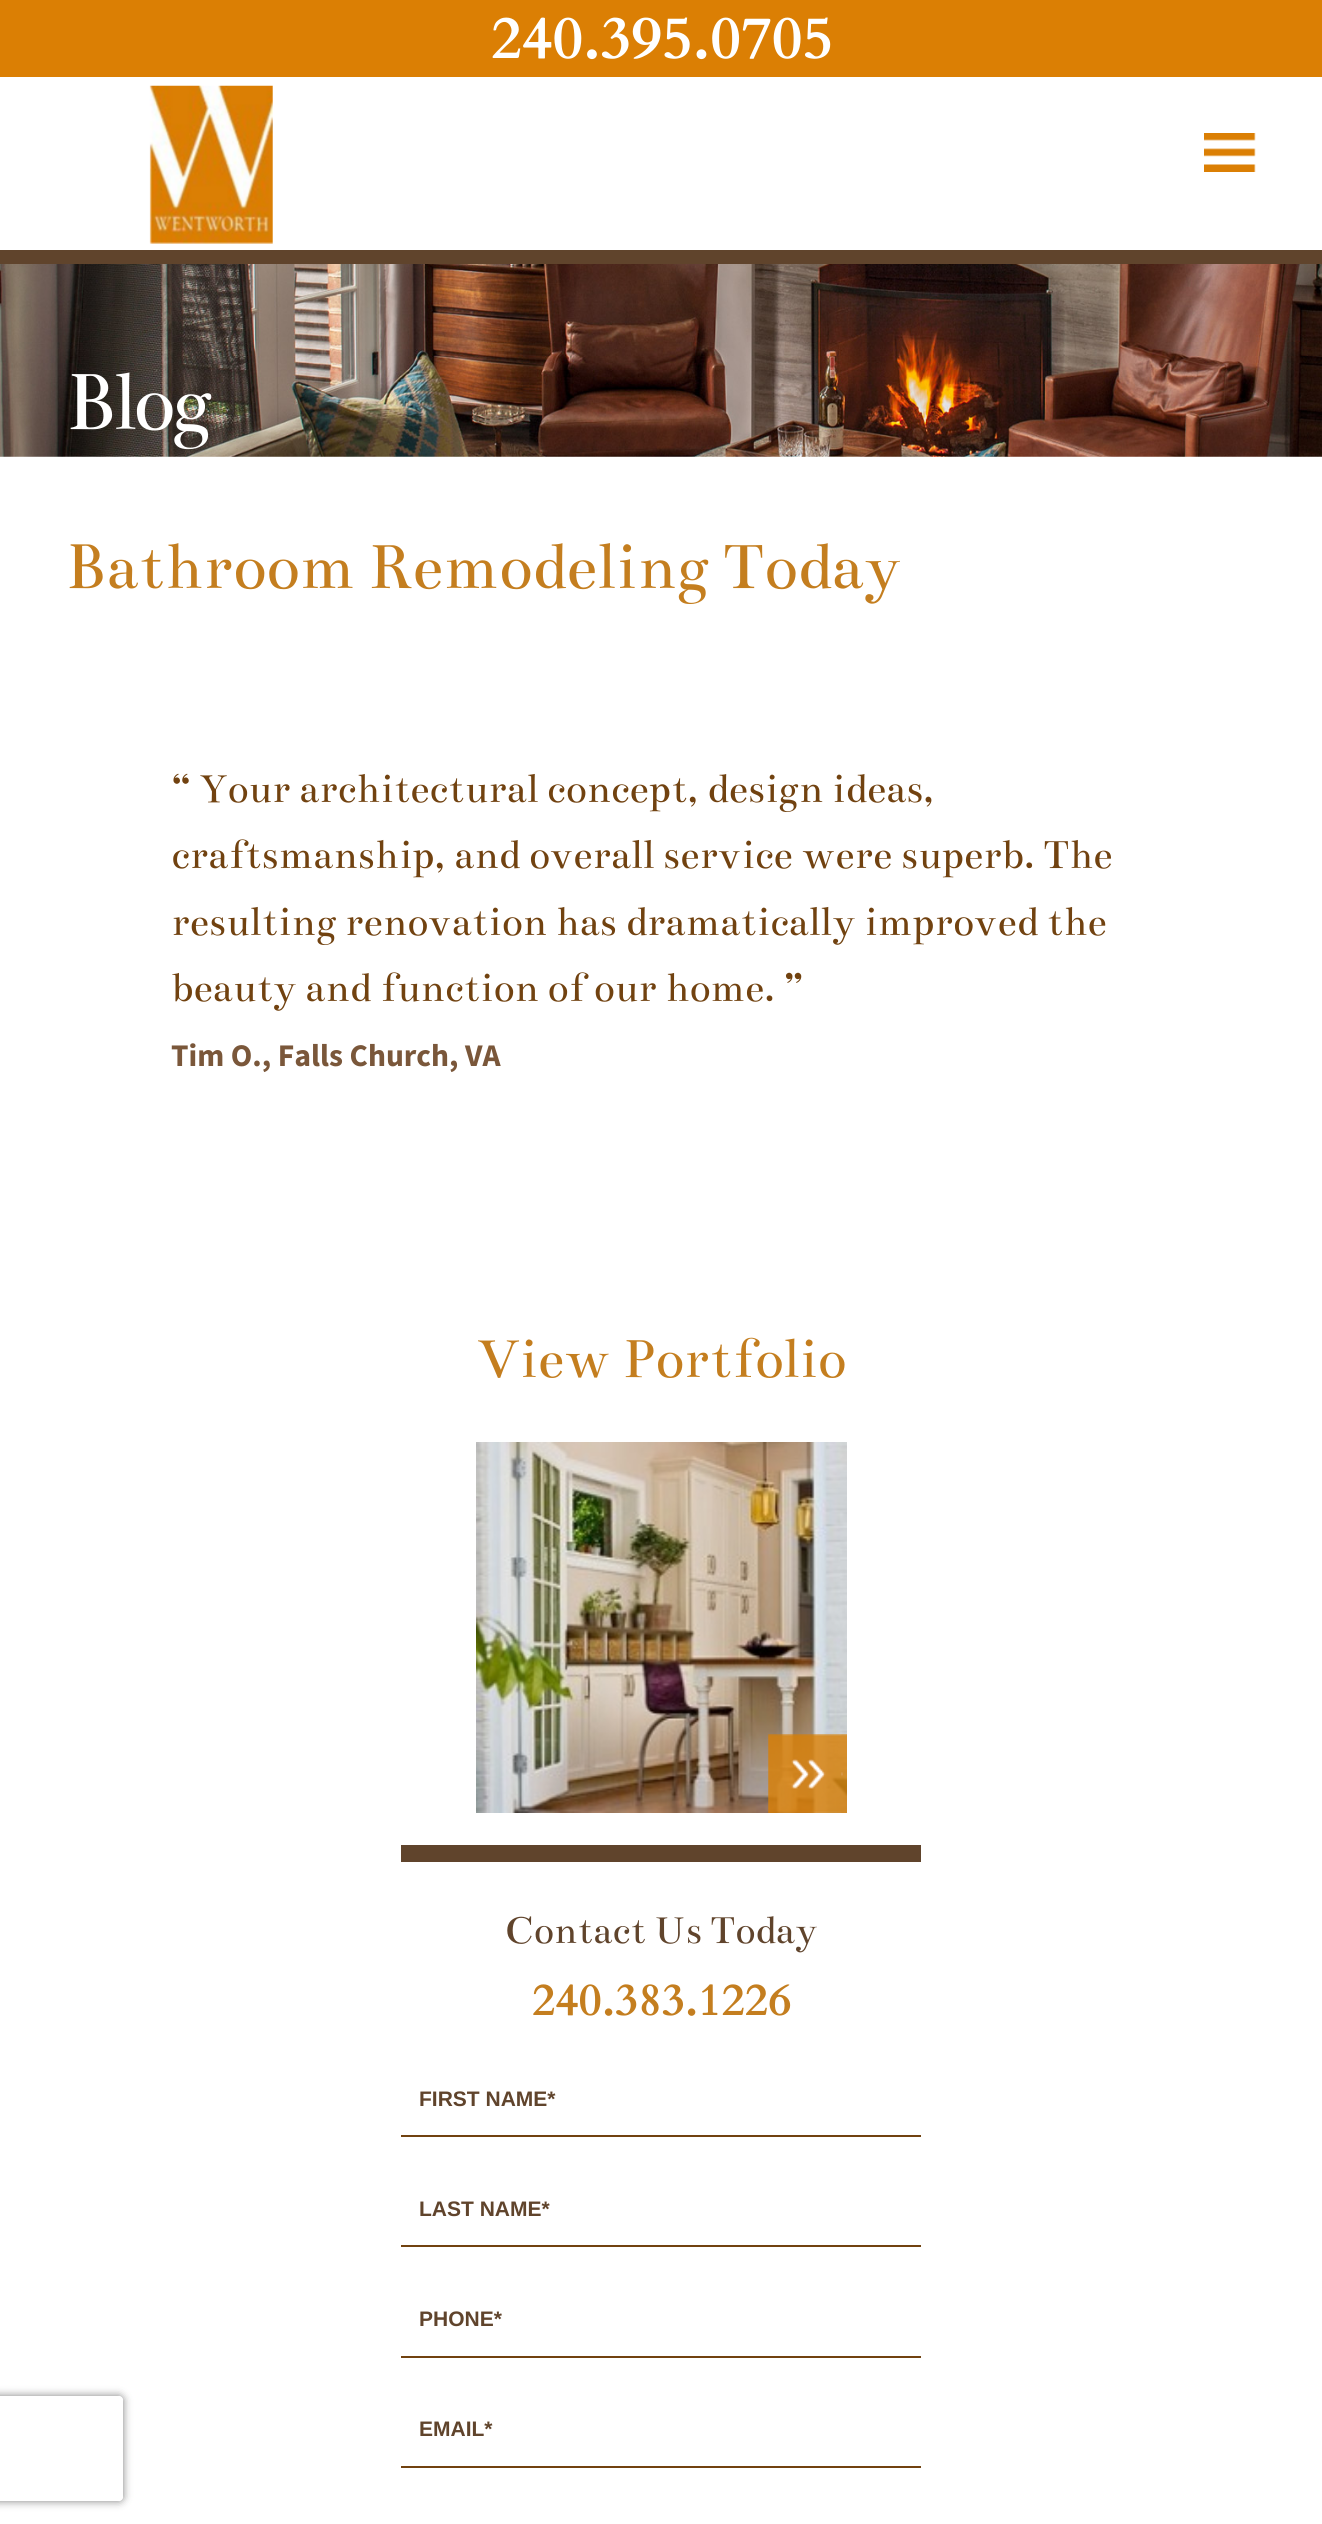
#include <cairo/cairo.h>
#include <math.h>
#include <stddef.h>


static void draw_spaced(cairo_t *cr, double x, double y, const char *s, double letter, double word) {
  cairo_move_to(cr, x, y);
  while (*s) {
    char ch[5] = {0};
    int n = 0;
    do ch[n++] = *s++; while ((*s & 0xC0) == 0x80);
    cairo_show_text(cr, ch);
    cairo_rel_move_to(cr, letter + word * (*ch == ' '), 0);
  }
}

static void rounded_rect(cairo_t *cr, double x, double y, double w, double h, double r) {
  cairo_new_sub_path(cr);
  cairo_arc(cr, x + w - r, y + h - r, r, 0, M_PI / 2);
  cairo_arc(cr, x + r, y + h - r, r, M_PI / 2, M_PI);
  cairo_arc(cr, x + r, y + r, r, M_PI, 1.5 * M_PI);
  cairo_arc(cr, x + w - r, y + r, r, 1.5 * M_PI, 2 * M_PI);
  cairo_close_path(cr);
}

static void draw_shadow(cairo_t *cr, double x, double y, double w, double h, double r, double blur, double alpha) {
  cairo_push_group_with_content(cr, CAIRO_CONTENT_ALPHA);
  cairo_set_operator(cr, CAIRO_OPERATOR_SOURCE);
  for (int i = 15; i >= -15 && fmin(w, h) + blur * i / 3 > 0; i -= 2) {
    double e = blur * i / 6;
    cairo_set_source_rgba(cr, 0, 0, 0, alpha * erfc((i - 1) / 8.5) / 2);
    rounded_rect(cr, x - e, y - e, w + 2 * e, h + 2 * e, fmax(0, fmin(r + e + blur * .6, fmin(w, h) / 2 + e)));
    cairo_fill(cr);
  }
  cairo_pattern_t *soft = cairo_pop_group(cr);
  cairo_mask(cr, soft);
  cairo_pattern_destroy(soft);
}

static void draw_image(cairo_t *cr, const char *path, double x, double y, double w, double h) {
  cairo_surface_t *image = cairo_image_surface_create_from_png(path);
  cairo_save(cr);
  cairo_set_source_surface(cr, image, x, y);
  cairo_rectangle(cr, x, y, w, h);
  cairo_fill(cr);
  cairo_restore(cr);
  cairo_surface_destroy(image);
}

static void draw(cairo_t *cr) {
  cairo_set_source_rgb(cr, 1, 1, 1);
  cairo_paint(cr);
  cairo_set_source_rgb(cr, 96 / 255.0, 68 / 255.0, 44 / 255.0);
  cairo_rectangle(cr, 0, 250, 1322, 14);
  cairo_fill(cr);
  cairo_set_source_rgb(cr, 219 / 255.0, 127 / 255.0, 4 / 255.0);
  cairo_rectangle(cr, 0, 0, 1322, 77);
  cairo_fill(cr);
  draw_image(cr, "images/1.png", 1204, 133, 52, 39);
  draw_image(cr, "images/2.png", 149, 85, 124, 159);
  draw_image(cr, "images/3.png", 0, 264, 1322, 193);
  draw_image(cr, "images/4.png", 476, 1442, 371, 371);
  draw_image(cr, "images/5.png", 768, 1734, 79, 79);
  cairo_set_source_rgb(cr, 96 / 255.0, 68 / 255.0, 44 / 255.0);
  cairo_rectangle(cr, 401, 1845, 520, 17);
  cairo_fill(cr);
  cairo_set_source_rgb(cr, 113 / 255.0, 66 / 255.0, 16 / 255.0);
  cairo_rectangle(cr, 401, 2135, 520, 2);
  cairo_fill(cr);
  cairo_rectangle(cr, 401, 2245, 520, 2);
  cairo_fill(cr);
  cairo_rectangle(cr, 401, 2356, 520, 2);
  cairo_fill(cr);
  cairo_save(cr);
  cairo_set_fill_rule(cr, CAIRO_FILL_RULE_EVEN_ODD);
  cairo_new_path(cr);
  cairo_move_to(cr, 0, 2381);
  cairo_line_to(cr, 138, 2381);
  cairo_line_to(cr, 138, 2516);
  cairo_line_to(cr, 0, 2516);
  cairo_close_path(cr);
  cairo_move_to(cr, -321, 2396);
  cairo_line_to(cr, 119, 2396);
  cairo_curve_to(cr, 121, 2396, 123, 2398, 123, 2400);
  cairo_line_to(cr, 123, 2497);
  cairo_curve_to(cr, 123, 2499, 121, 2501, 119, 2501);
  cairo_line_to(cr, -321, 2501);
  cairo_curve_to(cr, -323, 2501, -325, 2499, -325, 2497);
  cairo_line_to(cr, -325, 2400);
  cairo_curve_to(cr, -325, 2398, -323, 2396, -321, 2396);
  cairo_close_path(cr);
  cairo_clip(cr);
  cairo_set_source_rgb(cr, 128 / 255.0, 128 / 255.0, 128 / 255.0);
  draw_shadow(cr, -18, 2396, 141, 105, 4, 4.5, 1);
  cairo_restore(cr);
  cairo_rectangle(cr, 401, 2466, 520, 2);
  cairo_fill(cr);
  cairo_select_font_face(cr, "Cardo", CAIRO_FONT_SLANT_NORMAL, CAIRO_FONT_WEIGHT_BOLD);
  cairo_set_font_size(cr, 60);
  cairo_set_source_rgb(cr, 1, 1, 1);
  cairo_move_to(cr, 491, 58);
  cairo_show_text(cr, "240.395.0705");
  cairo_select_font_face(cr, "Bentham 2", CAIRO_FONT_SLANT_NORMAL, CAIRO_FONT_WEIGHT_NORMAL);
  cairo_set_font_size(cr, 88);
  draw_spaced(cr, 66, 429, "Blog", -3.5, 0);
  cairo_select_font_face(cr, "Bentham", CAIRO_FONT_SLANT_NORMAL, CAIRO_FONT_WEIGHT_NORMAL);
  cairo_set_font_size(cr, 70);
  cairo_set_source_rgb(cr, 196 / 255.0, 126 / 255.0, 31 / 255.0);
  cairo_move_to(cr, 66, 588);
  cairo_show_text(cr, "Bathroom Remodeling Today");
  cairo_set_font_size(cr, 43.75);
  cairo_set_source_rgb(cr, 113 / 255.0, 66 / 255.0, 16 / 255.0);
  cairo_move_to(cr, 171, 802);
  cairo_show_text(cr, "“ Your architectural concept, design ideas,");
  cairo_move_to(cr, 171, 868);
  cairo_show_text(cr, "craftsmanship, and overall service were superb. The");
  cairo_move_to(cr, 171, 935);
  cairo_show_text(cr, "resulting renovation has dramatically improved the");
  cairo_move_to(cr, 171, 1001);
  cairo_show_text(cr, "beauty and function of our home. ”");
  cairo_select_font_face(cr, "Source Sans Pro", CAIRO_FONT_SLANT_NORMAL, CAIRO_FONT_WEIGHT_BOLD);
  cairo_set_font_size(cr, 31.5);
  cairo_set_source_rgb(cr, 122 / 255.0, 87 / 255.0, 58 / 255.0);
  cairo_move_to(cr, 171, 1066);
  cairo_show_text(cr, "Tim O., Falls Church, VA");
  cairo_select_font_face(cr, "Bentham 2", CAIRO_FONT_SLANT_NORMAL, CAIRO_FONT_WEIGHT_NORMAL);
  cairo_set_font_size(cr, 60);
  cairo_set_source_rgb(cr, 196 / 255.0, 126 / 255.0, 31 / 255.0);
  cairo_move_to(cr, 478, 1377);
  cairo_show_text(cr, "View Portfolio");
  cairo_select_font_face(cr, "Bentham", CAIRO_FONT_SLANT_NORMAL, CAIRO_FONT_WEIGHT_NORMAL);
  cairo_set_font_size(cr, 42);
  cairo_set_source_rgb(cr, 96 / 255.0, 68 / 255.0, 44 / 255.0);
  cairo_move_to(cr, 505, 1943);
  cairo_show_text(cr, "Contact Us Today");
  cairo_select_font_face(cr, "Cardo", CAIRO_FONT_SLANT_NORMAL, CAIRO_FONT_WEIGHT_BOLD);
  cairo_set_font_size(cr, 45.5);
  cairo_set_source_rgb(cr, 196 / 255.0, 126 / 255.0, 31 / 255.0);
  cairo_move_to(cr, 532, 2015);
  cairo_show_text(cr, "240.383.1226");
  cairo_select_font_face(cr, "Liberation Sans", CAIRO_FONT_SLANT_NORMAL, CAIRO_FONT_WEIGHT_BOLD);
  cairo_set_font_size(cr, 21);
  cairo_set_source_rgb(cr, 96 / 255.0, 68 / 255.0, 44 / 255.0);
  cairo_move_to(cr, 419, 2106);
  cairo_show_text(cr, "FIRST NAME*");
  cairo_move_to(cr, 419, 2216);
  cairo_show_text(cr, "LAST NAME*");
  cairo_move_to(cr, 419, 2326);
  cairo_show_text(cr, "PHONE*");
  cairo_move_to(cr, 419, 2436);
  cairo_show_text(cr, "EMAIL*");
}

int main(void) {
  cairo_surface_t *surface = cairo_image_surface_create(CAIRO_FORMAT_RGB24, 1322, 2524);
  cairo_t *cr = cairo_create(surface);
  cairo_font_options_t *options = cairo_font_options_create();
  cairo_font_options_set_hint_metrics(options, CAIRO_HINT_METRICS_OFF);
  cairo_font_options_set_hint_style(options, CAIRO_HINT_STYLE_NONE);
  cairo_set_font_options(cr, options);
  cairo_set_miter_limit(cr, 4);
  draw(cr);
  cairo_surface_write_to_png(surface, "out.png");
  cairo_font_options_destroy(options);
  cairo_destroy(cr);
  cairo_surface_destroy(surface);
  return 0;
}
